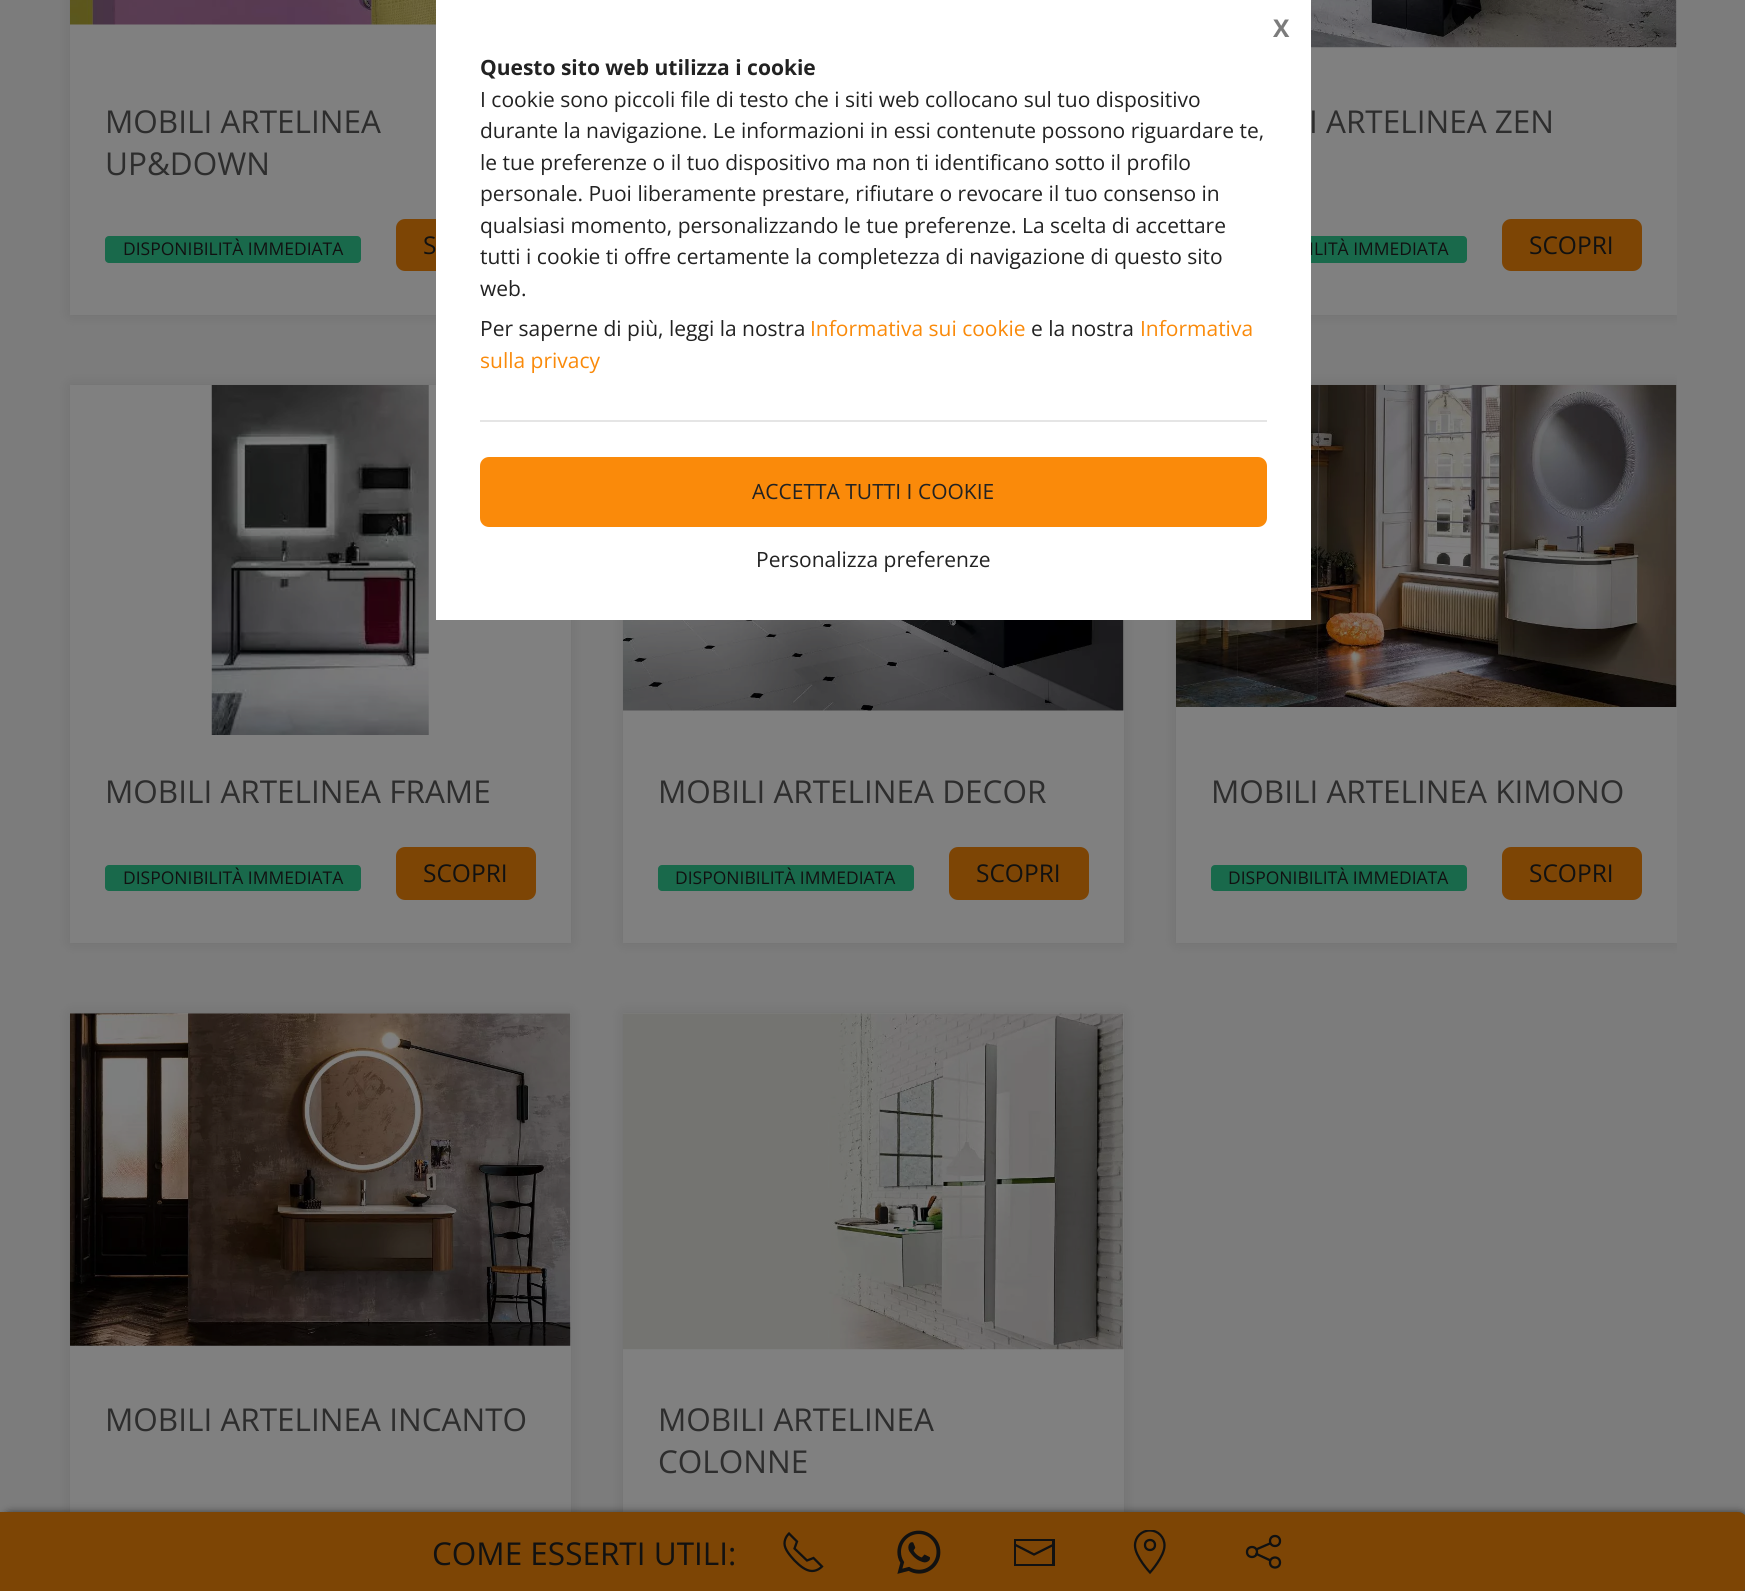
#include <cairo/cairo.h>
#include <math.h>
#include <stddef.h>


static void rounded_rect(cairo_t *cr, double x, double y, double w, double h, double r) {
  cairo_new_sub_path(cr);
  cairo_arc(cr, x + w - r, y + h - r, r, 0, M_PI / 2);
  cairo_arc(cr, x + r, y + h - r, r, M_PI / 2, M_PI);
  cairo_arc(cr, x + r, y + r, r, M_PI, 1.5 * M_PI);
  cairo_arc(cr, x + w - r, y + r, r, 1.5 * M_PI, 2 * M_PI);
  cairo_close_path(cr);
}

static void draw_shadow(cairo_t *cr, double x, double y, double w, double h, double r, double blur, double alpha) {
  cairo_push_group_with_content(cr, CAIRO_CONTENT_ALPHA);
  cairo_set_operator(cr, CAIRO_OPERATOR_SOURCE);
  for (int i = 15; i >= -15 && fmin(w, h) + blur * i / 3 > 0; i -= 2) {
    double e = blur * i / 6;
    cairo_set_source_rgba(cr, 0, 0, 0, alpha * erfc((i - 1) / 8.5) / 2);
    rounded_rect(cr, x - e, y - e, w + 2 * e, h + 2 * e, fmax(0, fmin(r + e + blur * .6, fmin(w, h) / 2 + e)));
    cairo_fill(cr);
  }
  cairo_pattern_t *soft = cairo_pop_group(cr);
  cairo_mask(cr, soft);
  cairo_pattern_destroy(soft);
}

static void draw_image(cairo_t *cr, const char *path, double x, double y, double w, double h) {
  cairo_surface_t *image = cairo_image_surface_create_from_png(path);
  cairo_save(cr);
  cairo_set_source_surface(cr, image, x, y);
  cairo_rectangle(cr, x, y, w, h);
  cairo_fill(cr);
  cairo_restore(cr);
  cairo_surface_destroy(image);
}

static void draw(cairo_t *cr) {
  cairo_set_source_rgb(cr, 124 / 255.0, 124 / 255.0, 124 / 255.0);
  cairo_paint(cr);
  cairo_set_source_rgb(cr, 0, 0, 0);
  draw_shadow(cr, 70, -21, 501, 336, 0, 7, 0.1);
  cairo_set_source_rgb(cr, 128 / 255.0, 128 / 255.0, 128 / 255.0);
  cairo_rectangle(cr, 70, 24, 366, 291);
  cairo_fill(cr);
  draw_image(cr, "images/1.png", 70, 0, 366, 25);
  cairo_set_source_rgb(cr, 25 / 255.0, 105 / 255.0, 75 / 255.0);
  rounded_rect(cr, 105, 236, 256, 27, 4);
  cairo_fill(cr);
  cairo_set_source_rgb(cr, 125 / 255.0, 69 / 255.0, 5 / 255.0);
  rounded_rect(cr, 396, 219, 140, 52, 9);
  cairo_fill(cr);
  cairo_save(cr);
  cairo_rectangle(cr, 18, 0, 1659, 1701);
  cairo_clip(cr);
  cairo_set_source_rgb(cr, 0, 0, 0);
  draw_shadow(cr, 1176, -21, 501, 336, 0, 7, 0.1);
  cairo_restore(cr);
  cairo_set_source_rgb(cr, 128 / 255.0, 128 / 255.0, 128 / 255.0);
  cairo_rectangle(cr, 1311, 0, 366, 315);
  cairo_fill(cr);
  draw_image(cr, "images/2.png", 1311, 0, 366, 48);
  cairo_set_source_rgb(cr, 25 / 255.0, 105 / 255.0, 75 / 255.0);
  rounded_rect(cr, 1211, 236, 256, 27, 4);
  cairo_fill(cr);
  cairo_set_source_rgb(cr, 125 / 255.0, 69 / 255.0, 5 / 255.0);
  rounded_rect(cr, 1502, 219, 140, 52, 9);
  cairo_fill(cr);
  cairo_set_source_rgb(cr, 0, 0, 0);
  draw_shadow(cr, 70, 385, 501, 558, 0, 7, 0.1);
  cairo_set_source_rgb(cr, 128 / 255.0, 128 / 255.0, 128 / 255.0);
  cairo_rectangle(cr, 70, 385, 501, 558);
  cairo_fill(cr);
  draw_image(cr, "images/3.png", 211, 385, 218, 350);
  cairo_set_source_rgb(cr, 25 / 255.0, 105 / 255.0, 75 / 255.0);
  rounded_rect(cr, 105, 865, 256, 26, 4);
  cairo_fill(cr);
  cairo_set_source_rgb(cr, 125 / 255.0, 69 / 255.0, 5 / 255.0);
  rounded_rect(cr, 396, 847, 140, 53, 9);
  cairo_fill(cr);
  cairo_set_source_rgb(cr, 0, 0, 0);
  draw_shadow(cr, 623, 385, 501, 558, 0, 7, 0.1);
  cairo_set_source_rgb(cr, 128 / 255.0, 128 / 255.0, 128 / 255.0);
  cairo_rectangle(cr, 623, 620, 501, 323);
  cairo_fill(cr);
  draw_image(cr, "images/4.png", 623, 620, 501, 91);
  cairo_set_source_rgb(cr, 25 / 255.0, 105 / 255.0, 75 / 255.0);
  rounded_rect(cr, 658, 865, 256, 26, 4);
  cairo_fill(cr);
  cairo_set_source_rgb(cr, 125 / 255.0, 69 / 255.0, 5 / 255.0);
  rounded_rect(cr, 949, 847, 140, 53, 9);
  cairo_fill(cr);
  cairo_save(cr);
  cairo_rectangle(cr, 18, 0, 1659, 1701);
  cairo_clip(cr);
  cairo_set_source_rgb(cr, 0, 0, 0);
  draw_shadow(cr, 1176, 385, 501, 558, 0, 7, 0.1);
  cairo_restore(cr);
  cairo_set_source_rgb(cr, 128 / 255.0, 128 / 255.0, 128 / 255.0);
  cairo_rectangle(cr, 1176, 385, 501, 558);
  cairo_fill(cr);
  draw_image(cr, "images/5.png", 1176, 385, 501, 322);
  cairo_set_source_rgb(cr, 25 / 255.0, 105 / 255.0, 75 / 255.0);
  rounded_rect(cr, 1211, 865, 256, 26, 4);
  cairo_fill(cr);
  cairo_set_source_rgb(cr, 125 / 255.0, 69 / 255.0, 5 / 255.0);
  rounded_rect(cr, 1502, 847, 140, 53, 9);
  cairo_fill(cr);
  cairo_set_source_rgb(cr, 0, 0, 0);
  draw_shadow(cr, 70, 1013, 501, 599, 0, 7, 0.1);
  cairo_set_source_rgb(cr, 128 / 255.0, 128 / 255.0, 128 / 255.0);
  cairo_rectangle(cr, 70, 1013, 501, 499);
  cairo_fill(cr);
  draw_image(cr, "images/6.png", 70, 1013, 501, 333);
  cairo_set_source_rgb(cr, 0, 0, 0);
  draw_shadow(cr, 623, 1013, 501, 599, 0, 7, 0.1);
  cairo_set_source_rgb(cr, 128 / 255.0, 128 / 255.0, 128 / 255.0);
  cairo_rectangle(cr, 623, 1013, 501, 499);
  cairo_fill(cr);
  draw_image(cr, "images/7.png", 623, 1013, 501, 337);
  cairo_set_source_rgb(cr, 17 / 255.0, 17 / 255.0, 17 / 255.0);
  draw_shadow(cr, 2, 1514, 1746, 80, 9, 4.5, 1);
  cairo_set_source_rgb(cr, 125 / 255.0, 69 / 255.0, 5 / 255.0);
  cairo_new_path(cr);
  cairo_move_to(cr, 0, 1512);
  cairo_line_to(cr, 1738, 1512);
  cairo_curve_to(cr, 1743, 1512, 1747, 1516, 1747, 1521);
  cairo_line_to(cr, 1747, 1584);
  cairo_curve_to(cr, 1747, 1589, 1743, 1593, 1738, 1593);
  cairo_line_to(cr, 0, 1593);
  cairo_close_path(cr);
  cairo_fill(cr);
  cairo_new_path(cr);
  cairo_move_to(cr, 794.5, 1560.5);
  cairo_curve_to(cr, 799, 1565, 805.5, 1571, 812, 1571);
  cairo_curve_to(cr, 818, 1571, 822, 1566.5, 822, 1566.5);
  cairo_line_to(cr, 813.5, 1558);
  cairo_line_to(cr, 807, 1560.5);
  cairo_line_to(cr, 794.5, 1548.5);
  cairo_line_to(cr, 797, 1541.5);
  cairo_line_to(cr, 789, 1533.5);
  cairo_curve_to(cr, 789, 1533.5, 784.5, 1537.5, 784.5, 1543.5);
  cairo_curve_to(cr, 784.5, 1549.5, 790.5, 1556, 794.5, 1560.5);
  cairo_set_source_rgb(cr, 17 / 255.0, 17 / 255.0, 17 / 255.0);
  cairo_set_line_width(cr, 2.3);
  cairo_stroke(cr);
  draw_image(cr, "images/8.png", 897, 1530, 44, 44);
  cairo_new_path(cr);
  cairo_move_to(cr, 1014.5, 1544.5);
  cairo_line_to(cr, 1034, 1554.5);
  cairo_line_to(cr, 1054, 1544.5);
  cairo_stroke(cr);
  cairo_new_path(cr);
  cairo_move_to(cr, 1014, 1539);
  cairo_line_to(cr, 1014, 1566);
  cairo_line_to(cr, 1055, 1566);
  cairo_line_to(cr, 1055, 1539);
  cairo_close_path(cr);
  cairo_move_to(cr, 1052, 1564);
  cairo_line_to(cr, 1016, 1564);
  cairo_line_to(cr, 1016, 1541);
  cairo_line_to(cr, 1052, 1541);
  cairo_close_path(cr);
  cairo_fill(cr);
  cairo_save(cr);
  cairo_rectangle(cr, 1127, 1530, 46, 45);
  cairo_clip(cr);
  cairo_new_path(cr);
  cairo_move_to(cr, 1150, 1530.5);
  cairo_curve_to(cr, 1141.5, 1530.5, 1135, 1537, 1135, 1545.5);
  cairo_curve_to(cr, 1135, 1556.5, 1150, 1572.5, 1150, 1572.5);
  cairo_curve_to(cr, 1150, 1572.5, 1164.5, 1556.5, 1164.5, 1545.5);
  cairo_curve_to(cr, 1164.5, 1537, 1158, 1530.5, 1150, 1530.5);
  cairo_close_path(cr);
  cairo_stroke(cr);
  cairo_restore(cr);
  cairo_arc(cr, 1150, 1545, 5, 0, 2 * M_PI);
  cairo_stroke(cr);
  cairo_new_path(cr);
  cairo_move_to(cr, 1270.5, 1560.5);
  cairo_line_to(cr, 1255.5, 1553.5);
  cairo_move_to(cr, 1271, 1543);
  cairo_line_to(cr, 1256, 1549.5);
  cairo_stroke(cr);
  cairo_arc(cr, 1275, 1541, 5, 0, 2 * M_PI);
  cairo_stroke(cr);
  cairo_arc(cr, 1275, 1562.5, 5, 0, 2 * M_PI);
  cairo_stroke(cr);
  cairo_arc(cr, 1252, 1552, 5, 0, 2 * M_PI);
  cairo_stroke(cr);
  cairo_select_font_face(cr, "Open Sans", CAIRO_FONT_SLANT_NORMAL, CAIRO_FONT_WEIGHT_NORMAL);
  cairo_set_font_size(cr, 31.5);
  cairo_set_source_rgb(cr, 45 / 255.0, 45 / 255.0, 45 / 255.0);
  cairo_move_to(cr, 105, 133);
  cairo_show_text(cr, "MOBILI ARTELINEA");
  cairo_move_to(cr, 105, 175);
  cairo_show_text(cr, "UP&DOWN");
  cairo_set_font_size(cr, 17.5);
  cairo_set_source_rgb(cr, 17 / 255.0, 17 / 255.0, 17 / 255.0);
  cairo_move_to(cr, 123, 255);
  cairo_show_text(cr, "DISPONIBILITÀ IMMEDIATA");
  cairo_set_font_size(cr, 24.5);
  cairo_move_to(cr, 423, 254);
  cairo_show_text(cr, "S");
  cairo_set_font_size(cr, 31.5);
  cairo_set_source_rgb(cr, 45 / 255.0, 45 / 255.0, 45 / 255.0);
  cairo_move_to(cr, 1309, 133);
  cairo_show_text(cr, "I ARTELINEA ZEN");
  cairo_set_font_size(cr, 17.5);
  cairo_set_source_rgb(cr, 17 / 255.0, 17 / 255.0, 17 / 255.0);
  cairo_move_to(cr, 1309, 255);
  cairo_show_text(cr, "ILITÀ IMMEDIATA");
  cairo_set_source_rgb(cr, 1, 1, 1);
  cairo_rectangle(cr, 436, 0, 875, 620);
  cairo_fill(cr);
  cairo_select_font_face(cr, "Open Sans", CAIRO_FONT_SLANT_NORMAL, CAIRO_FONT_WEIGHT_BOLD);
  cairo_set_font_size(cr, 24.5);
  cairo_set_source_rgb(cr, 124 / 255.0, 124 / 255.0, 124 / 255.0);
  cairo_move_to(cr, 1273, 37);
  cairo_show_text(cr, "X");
  cairo_select_font_face(cr, "Open Sans", CAIRO_FONT_SLANT_NORMAL, CAIRO_FONT_WEIGHT_NORMAL);
  cairo_set_font_size(cr, 21);
  cairo_set_source_rgb(cr, 250 / 255.0, 138 / 255.0, 10 / 255.0);
  cairo_move_to(cr, 480, 368);
  cairo_show_text(cr, "sulla privacy");
  cairo_move_to(cr, 1140, 336);
  cairo_show_text(cr, "Informativa");
  cairo_set_source_rgb(cr, 34 / 255.0, 34 / 255.0, 34 / 255.0);
  cairo_move_to(cr, 1031, 336);
  cairo_show_text(cr, "e la nostra");
  cairo_set_source_rgb(cr, 250 / 255.0, 138 / 255.0, 10 / 255.0);
  cairo_move_to(cr, 810, 336);
  cairo_show_text(cr, "Informativa sui cookie");
  cairo_set_source_rgb(cr, 34 / 255.0, 34 / 255.0, 34 / 255.0);
  cairo_move_to(cr, 480, 336);
  cairo_show_text(cr, "Per saperne di più, leggi la nostra");
  cairo_move_to(cr, 480, 296);
  cairo_show_text(cr, "web.");
  cairo_move_to(cr, 480, 264);
  cairo_show_text(cr, "tutti i cookie ti offre certamente la completezza di navigazione di questo sito");
  cairo_move_to(cr, 480, 233);
  cairo_show_text(cr, "qualsiasi momento, personalizzando le tue preferenze. La scelta di accettare");
  cairo_move_to(cr, 480, 201);
  cairo_show_text(cr, "personale. Puoi liberamente prestare, rifiutare o revocare il tuo consenso in");
  cairo_move_to(cr, 480, 170);
  cairo_show_text(cr, "le tue preferenze o il tuo dispositivo ma non ti identificano sotto il profilo");
  cairo_move_to(cr, 480, 138);
  cairo_show_text(cr, "durante la navigazione. Le informazioni in essi contenute possono riguardare te,");
  cairo_move_to(cr, 480, 107);
  cairo_show_text(cr, "I cookie sono piccoli file di testo che i siti web collocano sul tuo dispositivo");
  cairo_select_font_face(cr, "Open Sans", CAIRO_FONT_SLANT_NORMAL, CAIRO_FONT_WEIGHT_BOLD);
  cairo_move_to(cr, 480, 75);
  cairo_show_text(cr, "Questo sito web utilizza i cookie");
  cairo_select_font_face(cr, "Open Sans", CAIRO_FONT_SLANT_NORMAL, CAIRO_FONT_WEIGHT_NORMAL);
  cairo_move_to(cr, 756, 567);
  cairo_show_text(cr, "Personalizza preferenze");
  cairo_set_source_rgb(cr, 250 / 255.0, 138 / 255.0, 10 / 255.0);
  rounded_rect(cr, 480, 457, 787, 70, 9);
  cairo_fill(cr);
  cairo_set_source_rgb(cr, 34 / 255.0, 34 / 255.0, 34 / 255.0);
  cairo_move_to(cr, 752, 499);
  cairo_show_text(cr, "ACCETTA TUTTI I COOKIE");
  cairo_set_source_rgb(cr, 229 / 255.0, 229 / 255.0, 229 / 255.0);
  cairo_rectangle(cr, 480, 420, 787, 2);
  cairo_fill(cr);
  cairo_set_font_size(cr, 24.5);
  cairo_set_source_rgb(cr, 17 / 255.0, 17 / 255.0, 17 / 255.0);
  cairo_move_to(cr, 1529, 254);
  cairo_show_text(cr, "SCOPRI");
  cairo_set_font_size(cr, 31.5);
  cairo_set_source_rgb(cr, 45 / 255.0, 45 / 255.0, 45 / 255.0);
  cairo_move_to(cr, 105, 803);
  cairo_show_text(cr, "MOBILI ARTELINEA FRAME");
  cairo_set_font_size(cr, 17.5);
  cairo_set_source_rgb(cr, 17 / 255.0, 17 / 255.0, 17 / 255.0);
  cairo_move_to(cr, 123, 884);
  cairo_show_text(cr, "DISPONIBILITÀ IMMEDIATA");
  cairo_set_font_size(cr, 24.5);
  cairo_move_to(cr, 423, 882);
  cairo_show_text(cr, "SCOPRI");
  cairo_set_font_size(cr, 31.5);
  cairo_set_source_rgb(cr, 45 / 255.0, 45 / 255.0, 45 / 255.0);
  cairo_move_to(cr, 658, 803);
  cairo_show_text(cr, "MOBILI ARTELINEA DECOR");
  cairo_set_font_size(cr, 17.5);
  cairo_set_source_rgb(cr, 17 / 255.0, 17 / 255.0, 17 / 255.0);
  cairo_move_to(cr, 675, 884);
  cairo_show_text(cr, "DISPONIBILITÀ IMMEDIATA");
  cairo_set_font_size(cr, 24.5);
  cairo_move_to(cr, 976, 882);
  cairo_show_text(cr, "SCOPRI");
  cairo_set_font_size(cr, 31.5);
  cairo_set_source_rgb(cr, 45 / 255.0, 45 / 255.0, 45 / 255.0);
  cairo_move_to(cr, 1211, 803);
  cairo_show_text(cr, "MOBILI ARTELINEA KIMONO");
  cairo_set_font_size(cr, 17.5);
  cairo_set_source_rgb(cr, 17 / 255.0, 17 / 255.0, 17 / 255.0);
  cairo_move_to(cr, 1228, 884);
  cairo_show_text(cr, "DISPONIBILITÀ IMMEDIATA");
  cairo_set_font_size(cr, 24.5);
  cairo_move_to(cr, 1529, 882);
  cairo_show_text(cr, "SCOPRI");
  cairo_set_font_size(cr, 31.5);
  cairo_set_source_rgb(cr, 45 / 255.0, 45 / 255.0, 45 / 255.0);
  cairo_move_to(cr, 105, 1431);
  cairo_show_text(cr, "MOBILI ARTELINEA INCANTO");
  cairo_move_to(cr, 658, 1431);
  cairo_show_text(cr, "MOBILI ARTELINEA");
  cairo_move_to(cr, 658, 1473);
  cairo_show_text(cr, "COLONNE");
  cairo_set_source_rgb(cr, 17 / 255.0, 17 / 255.0, 17 / 255.0);
  cairo_move_to(cr, 432, 1565);
  cairo_show_text(cr, "COME ESSERTI UTILI:");
}

int main(void) {
  cairo_surface_t *surface = cairo_image_surface_create(CAIRO_FORMAT_RGB24, 1745, 1591);
  cairo_t *cr = cairo_create(surface);
  cairo_font_options_t *options = cairo_font_options_create();
  cairo_font_options_set_hint_metrics(options, CAIRO_HINT_METRICS_OFF);
  cairo_font_options_set_hint_style(options, CAIRO_HINT_STYLE_NONE);
  cairo_set_font_options(cr, options);
  cairo_set_miter_limit(cr, 4);
  draw(cr);
  cairo_surface_write_to_png(surface, "out.png");
  cairo_font_options_destroy(options);
  cairo_destroy(cr);
  cairo_surface_destroy(surface);
  return 0;
}
